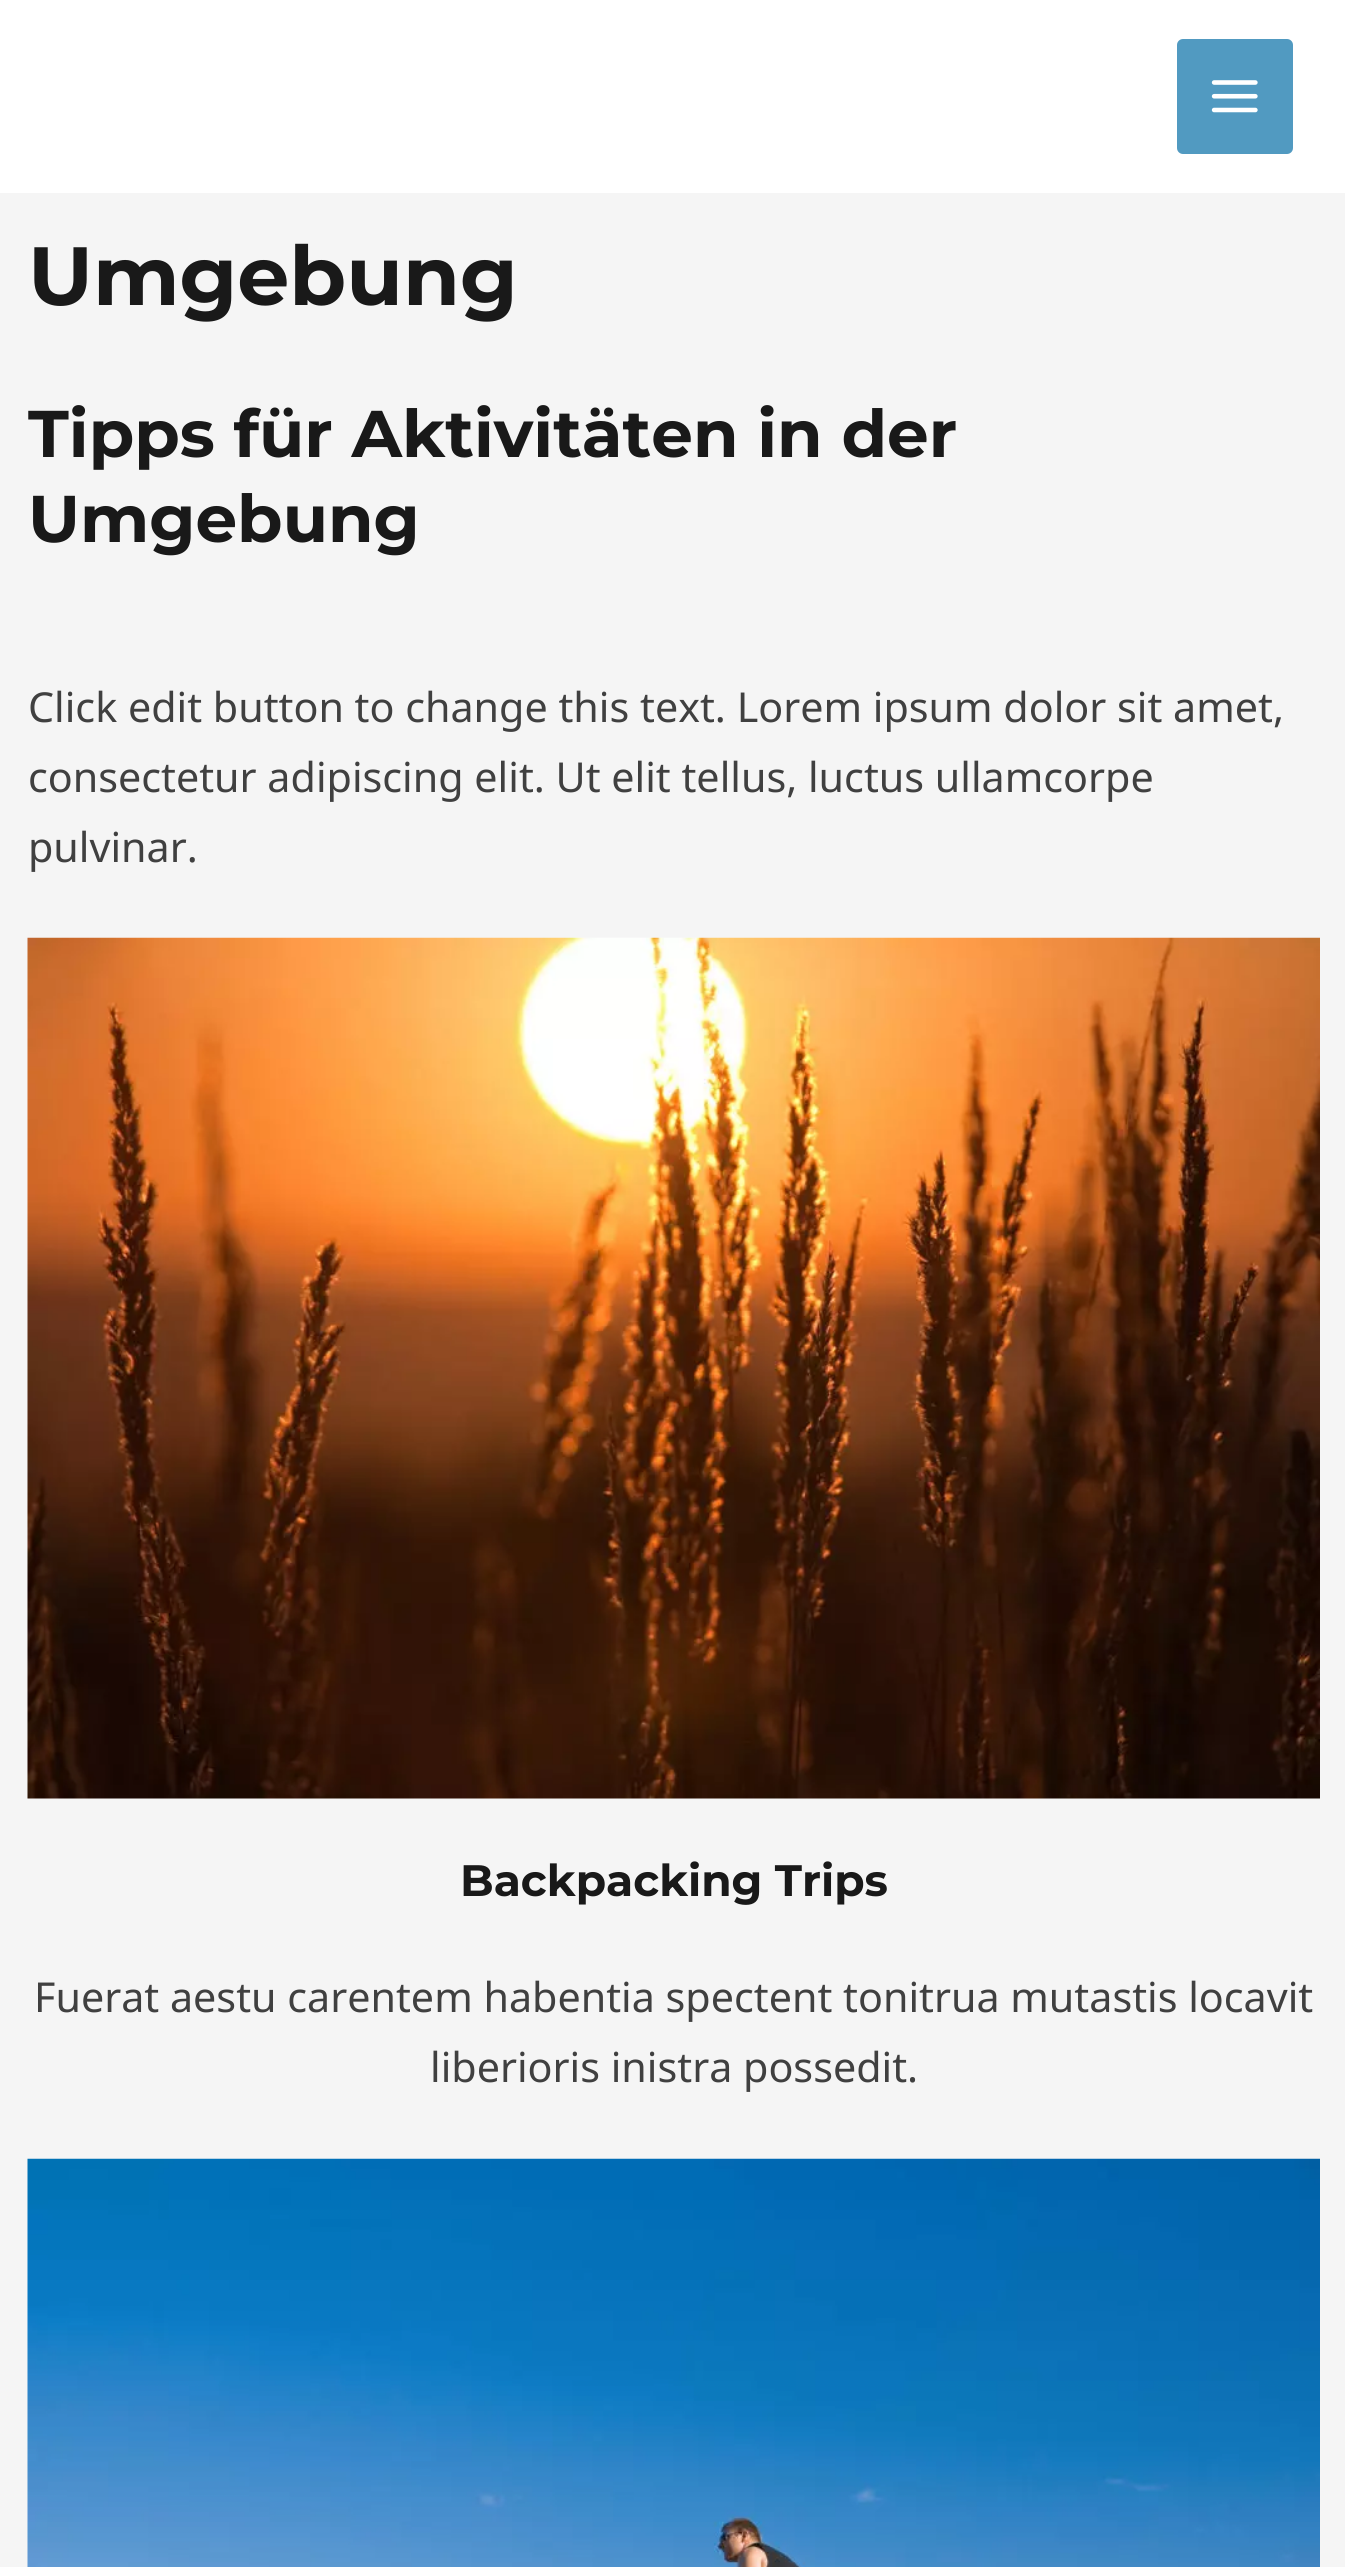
#include <cairo/cairo.h>
#include <math.h>
#include <stddef.h>


static void rounded_rect(cairo_t *cr, double x, double y, double w, double h, double r) {
  cairo_new_sub_path(cr);
  cairo_arc(cr, x + w - r, y + h - r, r, 0, M_PI / 2);
  cairo_arc(cr, x + r, y + h - r, r, M_PI / 2, M_PI);
  cairo_arc(cr, x + r, y + r, r, M_PI, 1.5 * M_PI);
  cairo_arc(cr, x + w - r, y + r, r, 1.5 * M_PI, 2 * M_PI);
  cairo_close_path(cr);
}

static void draw_image(cairo_t *cr, const char *path, double x, double y, double w, double h) {
  cairo_surface_t *image = cairo_image_surface_create_from_png(path);
  cairo_save(cr);
  cairo_set_source_surface(cr, image, x, y);
  cairo_rectangle(cr, x, y, w, h);
  cairo_fill(cr);
  cairo_restore(cr);
  cairo_surface_destroy(image);
}

static void draw(cairo_t *cr) {
  cairo_set_source_rgb(cr, 245 / 255.0, 245 / 255.0, 245 / 255.0);
  cairo_paint(cr);
  cairo_set_source_rgb(cr, 1, 1, 1);
  cairo_rectangle(cr, 0, 0, 1345, 193);
  cairo_fill(cr);
  cairo_set_source_rgb(cr, 81 / 255.0, 154 / 255.0, 193 / 255.0);
  rounded_rect(cr, 1177, 39, 116, 115, 6);
  cairo_fill(cr);
  draw_image(cr, "images/1.png", 1211, 80, 47, 33);
  draw_image(cr, "images/2.png", 27, 937, 1293, 862);
  draw_image(cr, "images/3.png", 27, 2158, 1293, 409);
  cairo_select_font_face(cr, "Montserrat Thin", CAIRO_FONT_SLANT_NORMAL, CAIRO_FONT_WEIGHT_NORMAL);
  cairo_set_font_size(cr, 82.5);
  cairo_set_source_rgb(cr, 25 / 255.0, 25 / 255.0, 25 / 255.0);
  cairo_move_to(cr, 28, 305);
  cairo_show_text(cr, "Umgebung");
  cairo_set_font_size(cr, 66);
  cairo_move_to(cr, 28, 457);
  cairo_show_text(cr, "Tipps für Aktivitäten in der");
  cairo_move_to(cr, 28, 542);
  cairo_show_text(cr, "Umgebung");
  cairo_select_font_face(cr, "Noto Sans", CAIRO_FONT_SLANT_NORMAL, CAIRO_FONT_WEIGHT_NORMAL);
  cairo_set_font_size(cr, 41.25);
  cairo_set_source_rgb(cr, 64 / 255.0, 64 / 255.0, 64 / 255.0);
  cairo_move_to(cr, 28, 722);
  cairo_show_text(cr, "Click edit button to change this text. Lorem ipsum dolor sit amet,");
  cairo_move_to(cr, 28, 792);
  cairo_show_text(cr, "consectetur adipiscing elit. Ut elit tellus, luctus ullamcorpe");
  cairo_move_to(cr, 28, 862);
  cairo_show_text(cr, "pulvinar.");
  cairo_select_font_face(cr, "Montserrat Thin", CAIRO_FONT_SLANT_NORMAL, CAIRO_FONT_WEIGHT_NORMAL);
  cairo_set_font_size(cr, 44);
  cairo_set_source_rgb(cr, 25 / 255.0, 25 / 255.0, 25 / 255.0);
  cairo_move_to(cr, 460, 1896);
  cairo_show_text(cr, "Backpacking Trips");
  cairo_select_font_face(cr, "Noto Sans", CAIRO_FONT_SLANT_NORMAL, CAIRO_FONT_WEIGHT_NORMAL);
  cairo_set_font_size(cr, 41.25);
  cairo_set_source_rgb(cr, 64 / 255.0, 64 / 255.0, 64 / 255.0);
  cairo_move_to(cr, 34, 2012);
  cairo_show_text(cr, "Fuerat aestu carentem habentia spectent tonitrua mutastis locavit");
  cairo_move_to(cr, 430, 2082);
  cairo_show_text(cr, "liberioris inistra possedit.");
}

int main(void) {
  cairo_surface_t *surface = cairo_image_surface_create(CAIRO_FORMAT_RGB24, 1345, 2567);
  cairo_t *cr = cairo_create(surface);
  cairo_font_options_t *options = cairo_font_options_create();
  cairo_font_options_set_hint_metrics(options, CAIRO_HINT_METRICS_OFF);
  cairo_font_options_set_hint_style(options, CAIRO_HINT_STYLE_NONE);
  cairo_set_font_options(cr, options);
  cairo_set_miter_limit(cr, 4);
  draw(cr);
  cairo_surface_write_to_png(surface, "out.png");
  cairo_font_options_destroy(options);
  cairo_destroy(cr);
  cairo_surface_destroy(surface);
  return 0;
}
